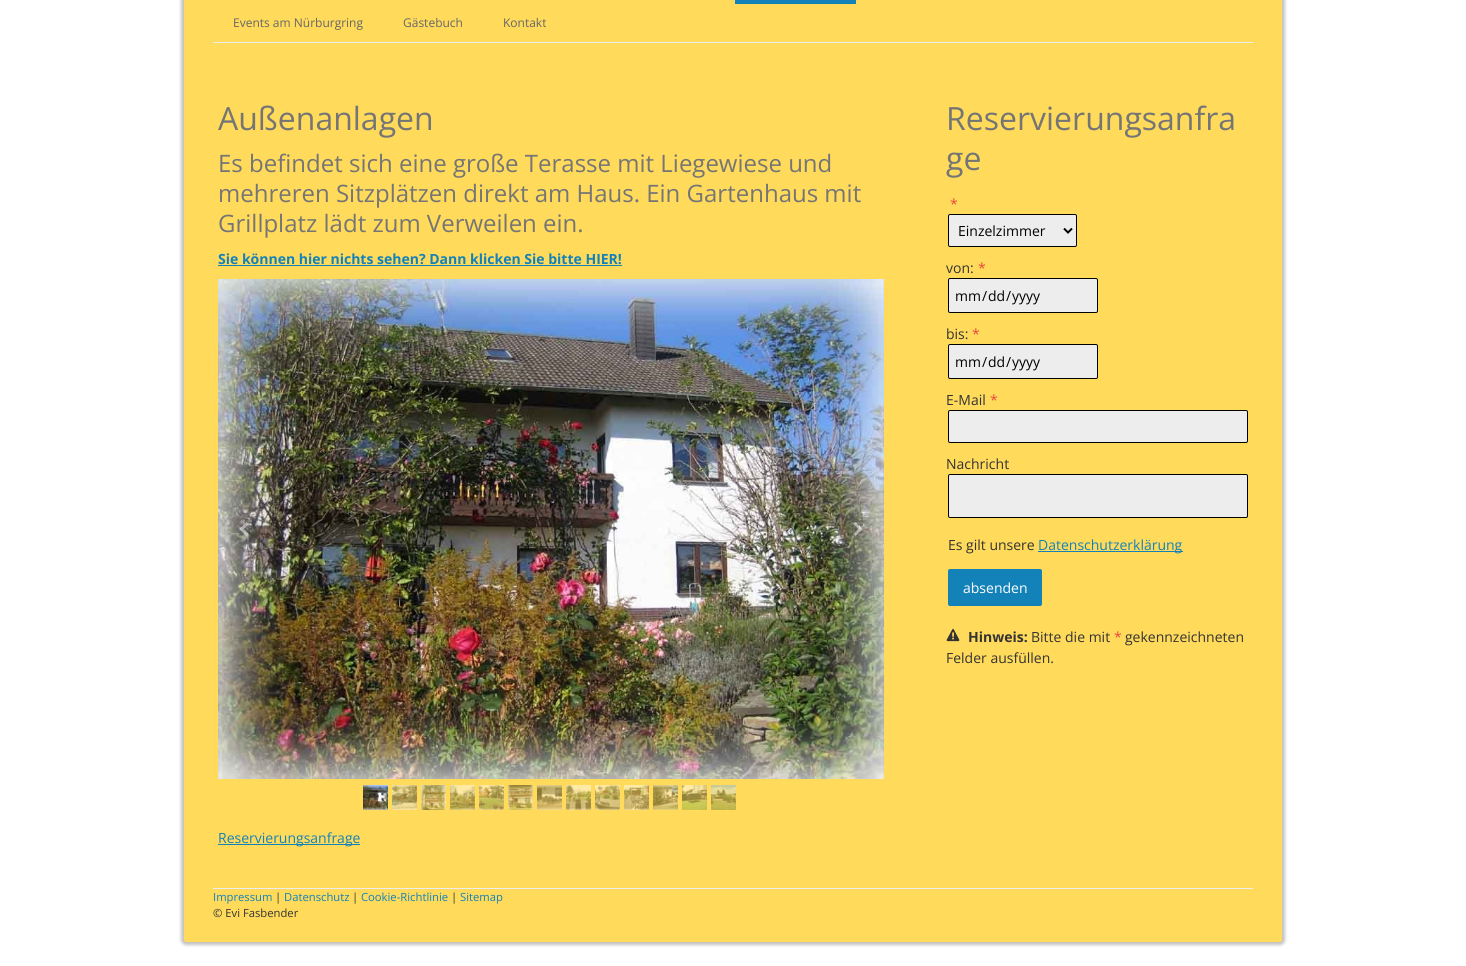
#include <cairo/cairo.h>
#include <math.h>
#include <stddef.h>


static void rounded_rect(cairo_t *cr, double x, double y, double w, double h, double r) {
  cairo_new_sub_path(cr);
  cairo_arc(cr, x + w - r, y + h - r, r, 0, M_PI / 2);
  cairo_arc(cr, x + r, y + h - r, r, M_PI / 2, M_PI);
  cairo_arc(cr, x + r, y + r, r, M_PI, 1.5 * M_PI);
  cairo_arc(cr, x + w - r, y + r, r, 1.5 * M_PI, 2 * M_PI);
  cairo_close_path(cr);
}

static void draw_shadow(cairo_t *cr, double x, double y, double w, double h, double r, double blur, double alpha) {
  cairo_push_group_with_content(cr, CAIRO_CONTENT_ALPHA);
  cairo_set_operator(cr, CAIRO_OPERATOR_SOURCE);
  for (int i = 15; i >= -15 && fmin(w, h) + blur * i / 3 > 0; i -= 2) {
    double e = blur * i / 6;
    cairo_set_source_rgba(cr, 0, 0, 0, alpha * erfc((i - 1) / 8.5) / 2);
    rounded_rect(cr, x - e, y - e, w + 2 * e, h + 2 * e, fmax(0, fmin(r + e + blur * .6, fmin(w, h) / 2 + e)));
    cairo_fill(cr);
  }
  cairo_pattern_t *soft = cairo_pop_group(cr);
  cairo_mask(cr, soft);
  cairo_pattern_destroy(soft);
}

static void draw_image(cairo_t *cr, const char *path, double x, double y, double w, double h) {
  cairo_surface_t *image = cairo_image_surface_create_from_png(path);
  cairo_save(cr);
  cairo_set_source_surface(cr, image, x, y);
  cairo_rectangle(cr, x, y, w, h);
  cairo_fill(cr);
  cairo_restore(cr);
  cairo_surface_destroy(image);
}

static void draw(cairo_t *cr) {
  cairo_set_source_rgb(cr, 1, 1, 1);
  cairo_paint(cr);
  cairo_set_source_rgb(cr, 51 / 255.0, 51 / 255.0, 51 / 255.0);
  draw_shadow(cr, 181, -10, 1104, 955, 5, 1.5, 0.3);
  cairo_set_source_rgb(cr, 1, 218 / 255.0, 91 / 255.0);
  rounded_rect(cr, 184, -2, 1098, 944, 2);
  cairo_fill(cr);
  cairo_set_source_rgb(cr, 237 / 255.0, 237 / 255.0, 237 / 255.0);
  cairo_rectangle(cr, 213, 42, 1040, 1);
  cairo_fill(cr);
  cairo_set_source_rgb(cr, 19 / 255.0, 130 / 255.0, 185 / 255.0);
  cairo_rectangle(cr, 735, 0, 121, 4);
  cairo_fill(cr);
  cairo_rectangle(cr, 218, 265, 404, 1);
  cairo_fill(cr);
  draw_image(cr, "images/1.png", 218, 279, 666, 500);
  cairo_set_source_rgba(cr, 0, 0, 0, 0.07);
  cairo_arc(cr, 244, 529, 16, 0, 2 * M_PI);
  cairo_fill(cr);
  draw_image(cr, "images/2.png", 239, 522, 10, 14);
  cairo_arc(cr, 858, 529, 16, 0, 2 * M_PI);
  cairo_fill(cr);
  draw_image(cr, "images/3.png", 853, 522, 10, 14);
  draw_image(cr, "images/4.png", 363, 785, 25, 25);
  draw_image(cr, "images/5.png", 392, 785, 25, 25);
  draw_image(cr, "images/6.png", 421, 785, 25, 25);
  draw_image(cr, "images/7.png", 450, 785, 25, 25);
  draw_image(cr, "images/8.png", 479, 785, 25, 25);
  draw_image(cr, "images/9.png", 508, 785, 25, 25);
  draw_image(cr, "images/10.png", 537, 785, 25, 25);
  draw_image(cr, "images/11.png", 566, 785, 25, 25);
  draw_image(cr, "images/12.png", 595, 785, 25, 25);
  draw_image(cr, "images/13.png", 624, 785, 25, 25);
  draw_image(cr, "images/14.png", 653, 785, 25, 25);
  draw_image(cr, "images/15.png", 682, 785, 25, 25);
  draw_image(cr, "images/16.png", 711, 785, 25, 25);
  cairo_set_source_rgb(cr, 19 / 255.0, 130 / 255.0, 185 / 255.0);
  cairo_rectangle(cr, 218, 844, 142, 1);
  cairo_fill(cr);
  cairo_set_source_rgb(cr, 237 / 255.0, 237 / 255.0, 237 / 255.0);
  rounded_rect(cr, 948.5, 214.5, 128, 32, 1.5);
  cairo_fill_preserve(cr);
  cairo_set_source_rgb(cr, 0, 0, 0);
  cairo_set_line_width(cr, 1);
  cairo_stroke(cr);
  cairo_new_path(cr);
  cairo_move_to(cr, 1064, 228.5);
  cairo_line_to(cr, 1068, 232.5);
  cairo_line_to(cr, 1072, 228.5);
  cairo_set_line_width(cr, 2);
  cairo_stroke(cr);
  cairo_set_source_rgb(cr, 237 / 255.0, 237 / 255.0, 237 / 255.0);
  rounded_rect(cr, 948.5, 278.5, 149, 34, 1.5);
  cairo_fill_preserve(cr);
  cairo_set_source_rgb(cr, 0, 0, 0);
  cairo_set_line_width(cr, 1);
  cairo_stroke(cr);
  cairo_set_source_rgb(cr, 237 / 255.0, 237 / 255.0, 237 / 255.0);
  rounded_rect(cr, 948.5, 344.5, 149, 34, 1.5);
  cairo_fill_preserve(cr);
  cairo_set_source_rgb(cr, 0, 0, 0);
  cairo_stroke(cr);
  cairo_set_source_rgb(cr, 237 / 255.0, 237 / 255.0, 237 / 255.0);
  rounded_rect(cr, 948.5, 410.5, 299, 32, 1.5);
  cairo_fill_preserve(cr);
  cairo_set_source_rgb(cr, 0, 0, 0);
  cairo_stroke(cr);
  cairo_set_source_rgb(cr, 237 / 255.0, 237 / 255.0, 237 / 255.0);
  rounded_rect(cr, 948.5, 474.5, 299, 43, 1.5);
  cairo_fill_preserve(cr);
  cairo_set_source_rgb(cr, 0, 0, 0);
  cairo_stroke(cr);
  cairo_set_source_rgb(cr, 19 / 255.0, 130 / 255.0, 185 / 255.0);
  cairo_rectangle(cr, 1038, 551, 145, 1);
  cairo_fill(cr);
  rounded_rect(cr, 948.5, 569.5, 93, 36, 1.5);
  cairo_fill_preserve(cr);
  cairo_stroke(cr);
  draw_image(cr, "images/17.png", 946, 628, 14, 14);
  cairo_set_source_rgb(cr, 237 / 255.0, 237 / 255.0, 237 / 255.0);
  cairo_rectangle(cr, 213, 888, 1040, 1);
  cairo_fill(cr);
  cairo_select_font_face(cr, "Open Sans", CAIRO_FONT_SLANT_NORMAL, CAIRO_FONT_WEIGHT_NORMAL);
  cairo_set_font_size(cr, 12);
  cairo_set_source_rgb(cr, 102 / 255.0, 102 / 255.0, 102 / 255.0);
  cairo_move_to(cr, 233, 27);
  cairo_show_text(cr, "Events am Nürburgring");
  cairo_move_to(cr, 403, 27);
  cairo_show_text(cr, "Gästebuch");
  cairo_move_to(cr, 503, 27);
  cairo_show_text(cr, "Kontakt");
  cairo_set_font_size(cr, 32);
  cairo_set_source_rgb(cr, 117 / 255.0, 117 / 255.0, 117 / 255.0);
  cairo_move_to(cr, 218, 130);
  cairo_show_text(cr, "Außenanlagen");
  cairo_set_font_size(cr, 24);
  cairo_move_to(cr, 218, 172);
  cairo_show_text(cr, "Es befindet sich eine große Terasse mit Liegewiese und");
  cairo_move_to(cr, 218, 202);
  cairo_show_text(cr, "mehreren Sitzplätzen direkt am Haus. Ein Gartenhaus mit");
  cairo_move_to(cr, 218, 232);
  cairo_show_text(cr, "Grillplatz lädt zum Verweilen ein.");
  cairo_select_font_face(cr, "Open Sans", CAIRO_FONT_SLANT_NORMAL, CAIRO_FONT_WEIGHT_BOLD);
  cairo_set_font_size(cr, 14);
  cairo_set_source_rgb(cr, 19 / 255.0, 130 / 255.0, 185 / 255.0);
  cairo_move_to(cr, 218, 264);
  cairo_show_text(cr, "Sie können hier nichts sehen? Dann klicken Sie bitte HIER!");
  cairo_select_font_face(cr, "Open Sans", CAIRO_FONT_SLANT_NORMAL, CAIRO_FONT_WEIGHT_NORMAL);
  cairo_move_to(cr, 218, 843);
  cairo_show_text(cr, "Reservierungsanfrage");
  cairo_set_font_size(cr, 32);
  cairo_set_source_rgb(cr, 117 / 255.0, 117 / 255.0, 117 / 255.0);
  cairo_move_to(cr, 946, 130);
  cairo_show_text(cr, "Reservierungsanfra");
  cairo_move_to(cr, 946, 170);
  cairo_show_text(cr, "ge");
  cairo_set_font_size(cr, 14);
  cairo_set_source_rgb(cr, 235 / 255.0, 67 / 255.0, 62 / 255.0);
  cairo_move_to(cr, 950, 209);
  cairo_show_text(cr, "*");
  cairo_set_source_rgb(cr, 0, 0, 0);
  cairo_move_to(cr, 958, 236);
  cairo_show_text(cr, "Einzelzimmer");
  cairo_set_source_rgb(cr, 51 / 255.0, 51 / 255.0, 51 / 255.0);
  cairo_move_to(cr, 946, 273);
  cairo_show_text(cr, "von:");
  cairo_set_source_rgb(cr, 235 / 255.0, 67 / 255.0, 62 / 255.0);
  cairo_move_to(cr, 978, 273);
  cairo_show_text(cr, "*");
  cairo_set_source_rgb(cr, 0, 0, 0);
  cairo_move_to(cr, 955, 301);
  cairo_show_text(cr, "mm");
  cairo_move_to(cr, 982, 301);
  cairo_show_text(cr, "/");
  cairo_move_to(cr, 988, 301);
  cairo_show_text(cr, "dd");
  cairo_move_to(cr, 1006, 301);
  cairo_show_text(cr, "/");
  cairo_move_to(cr, 1012, 301);
  cairo_show_text(cr, "yyyy");
  cairo_set_source_rgb(cr, 51 / 255.0, 51 / 255.0, 51 / 255.0);
  cairo_move_to(cr, 946, 339);
  cairo_show_text(cr, "bis:");
  cairo_set_source_rgb(cr, 235 / 255.0, 67 / 255.0, 62 / 255.0);
  cairo_move_to(cr, 972, 339);
  cairo_show_text(cr, "*");
  cairo_set_source_rgb(cr, 0, 0, 0);
  cairo_move_to(cr, 955, 367);
  cairo_show_text(cr, "mm");
  cairo_move_to(cr, 982, 367);
  cairo_show_text(cr, "/");
  cairo_move_to(cr, 988, 367);
  cairo_show_text(cr, "dd");
  cairo_move_to(cr, 1006, 367);
  cairo_show_text(cr, "/");
  cairo_move_to(cr, 1012, 367);
  cairo_show_text(cr, "yyyy");
  cairo_set_source_rgb(cr, 51 / 255.0, 51 / 255.0, 51 / 255.0);
  cairo_move_to(cr, 946, 405);
  cairo_show_text(cr, "E-Mail");
  cairo_set_source_rgb(cr, 235 / 255.0, 67 / 255.0, 62 / 255.0);
  cairo_move_to(cr, 990, 405);
  cairo_show_text(cr, "*");
  cairo_set_source_rgb(cr, 51 / 255.0, 51 / 255.0, 51 / 255.0);
  cairo_move_to(cr, 946, 469);
  cairo_show_text(cr, "Nachricht");
  cairo_move_to(cr, 948, 550);
  cairo_show_text(cr, "Es gilt unsere");
  cairo_set_source_rgb(cr, 19 / 255.0, 130 / 255.0, 185 / 255.0);
  cairo_move_to(cr, 1038, 550);
  cairo_show_text(cr, "Datenschutzerklärung");
  cairo_set_source_rgb(cr, 1, 1, 1);
  cairo_move_to(cr, 963, 593);
  cairo_show_text(cr, "absenden");
  cairo_select_font_face(cr, "Open Sans", CAIRO_FONT_SLANT_NORMAL, CAIRO_FONT_WEIGHT_BOLD);
  cairo_set_source_rgb(cr, 51 / 255.0, 51 / 255.0, 51 / 255.0);
  cairo_move_to(cr, 968, 642);
  cairo_show_text(cr, "Hinweis:");
  cairo_select_font_face(cr, "Open Sans", CAIRO_FONT_SLANT_NORMAL, CAIRO_FONT_WEIGHT_NORMAL);
  cairo_move_to(cr, 1031, 642);
  cairo_show_text(cr, "Bitte die mit");
  cairo_set_source_rgb(cr, 235 / 255.0, 67 / 255.0, 62 / 255.0);
  cairo_move_to(cr, 1114, 642);
  cairo_show_text(cr, "*");
  cairo_set_source_rgb(cr, 51 / 255.0, 51 / 255.0, 51 / 255.0);
  cairo_move_to(cr, 1125, 642);
  cairo_show_text(cr, "gekennzeichneten");
  cairo_move_to(cr, 946, 663);
  cairo_show_text(cr, "Felder ausfüllen.");
  cairo_set_font_size(cr, 11.25);
  cairo_set_source_rgb(cr, 19 / 255.0, 130 / 255.0, 185 / 255.0);
  cairo_move_to(cr, 213, 901);
  cairo_show_text(cr, "Impressum");
  cairo_set_source_rgb(cr, 51 / 255.0, 51 / 255.0, 51 / 255.0);
  cairo_move_to(cr, 275, 901);
  cairo_show_text(cr, "|");
  cairo_set_source_rgb(cr, 19 / 255.0, 130 / 255.0, 185 / 255.0);
  cairo_move_to(cr, 284, 901);
  cairo_show_text(cr, "Datenschutz");
  cairo_set_source_rgb(cr, 51 / 255.0, 51 / 255.0, 51 / 255.0);
  cairo_move_to(cr, 352, 901);
  cairo_show_text(cr, "|");
  cairo_set_source_rgb(cr, 19 / 255.0, 130 / 255.0, 185 / 255.0);
  cairo_move_to(cr, 361, 901);
  cairo_show_text(cr, "Cookie-Richtlinie");
  cairo_set_source_rgb(cr, 51 / 255.0, 51 / 255.0, 51 / 255.0);
  cairo_move_to(cr, 451, 901);
  cairo_show_text(cr, "|");
  cairo_set_source_rgb(cr, 19 / 255.0, 130 / 255.0, 185 / 255.0);
  cairo_move_to(cr, 460, 901);
  cairo_show_text(cr, "Sitemap");
  cairo_set_source_rgb(cr, 51 / 255.0, 51 / 255.0, 51 / 255.0);
  cairo_move_to(cr, 213, 917);
  cairo_show_text(cr, "© Evi Fasbender");
}

int main(void) {
  cairo_surface_t *surface = cairo_image_surface_create(CAIRO_FORMAT_RGB24, 1466, 966);
  cairo_t *cr = cairo_create(surface);
  cairo_font_options_t *options = cairo_font_options_create();
  cairo_font_options_set_hint_metrics(options, CAIRO_HINT_METRICS_OFF);
  cairo_font_options_set_hint_style(options, CAIRO_HINT_STYLE_NONE);
  cairo_set_font_options(cr, options);
  cairo_set_miter_limit(cr, 4);
  draw(cr);
  cairo_surface_write_to_png(surface, "out.png");
  cairo_font_options_destroy(options);
  cairo_destroy(cr);
  cairo_surface_destroy(surface);
  return 0;
}
